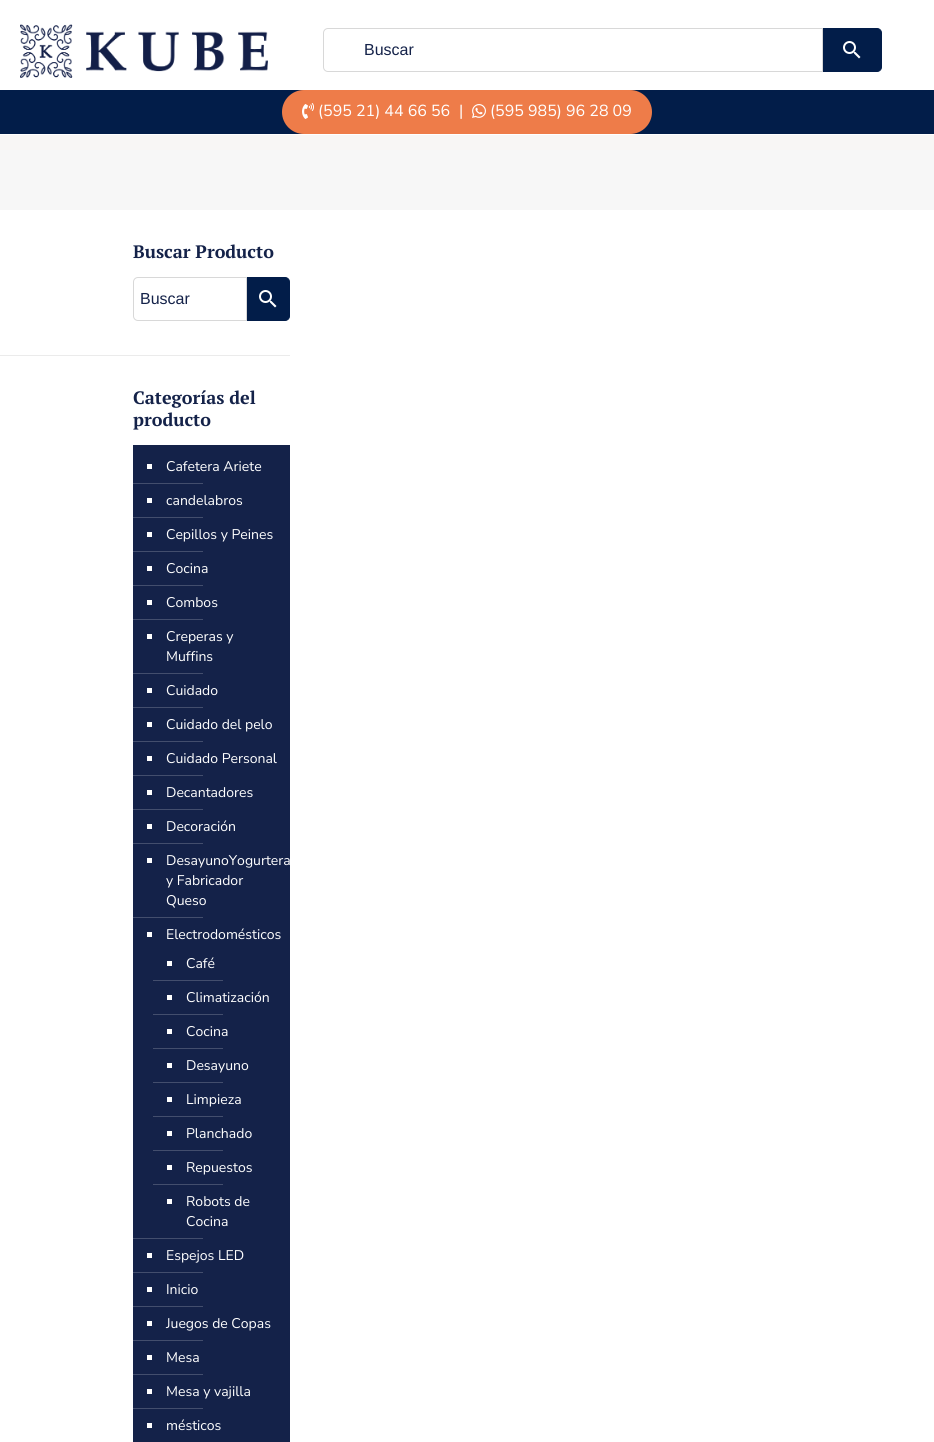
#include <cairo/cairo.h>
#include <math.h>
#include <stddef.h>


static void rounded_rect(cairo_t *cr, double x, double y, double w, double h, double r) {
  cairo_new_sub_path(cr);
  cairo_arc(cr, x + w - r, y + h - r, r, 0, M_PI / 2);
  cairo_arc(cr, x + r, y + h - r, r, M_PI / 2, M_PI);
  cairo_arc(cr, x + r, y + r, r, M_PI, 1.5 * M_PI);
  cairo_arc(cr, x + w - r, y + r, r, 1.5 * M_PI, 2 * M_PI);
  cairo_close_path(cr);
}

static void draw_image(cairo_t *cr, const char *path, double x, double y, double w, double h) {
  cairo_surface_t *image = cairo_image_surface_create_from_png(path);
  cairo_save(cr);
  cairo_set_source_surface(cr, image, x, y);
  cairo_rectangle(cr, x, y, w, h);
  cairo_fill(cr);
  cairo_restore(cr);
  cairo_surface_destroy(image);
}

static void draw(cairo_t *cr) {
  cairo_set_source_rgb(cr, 1, 1, 1);
  cairo_paint(cr);
  cairo_set_source_rgb(cr, 248 / 255.0, 246 / 255.0, 245 / 255.0);
  cairo_rectangle(cr, 0, 135, 934, 15);
  cairo_fill(cr);
  draw_image(cr, "images/1.png", 20, 24, 248, 54);
  cairo_set_source_rgb(cr, 2 / 255.0, 29 / 255.0, 73 / 255.0);
  cairo_new_path(cr);
  cairo_move_to(cr, 822.5, 28.5);
  cairo_line_to(cr, 877, 28.5);
  cairo_curve_to(cr, 879.5, 28.5, 881.5, 30.5, 881.5, 33);
  cairo_line_to(cr, 881.5, 67);
  cairo_curve_to(cr, 881.5, 69.5, 879.5, 71.5, 877, 71.5);
  cairo_line_to(cr, 822.5, 71.5);
  cairo_close_path(cr);
  cairo_fill_preserve(cr);
  cairo_set_line_width(cr, 1);
  cairo_stroke(cr);
  cairo_set_source_rgb(cr, 1, 1, 1);
  cairo_new_path(cr);
  cairo_move_to(cr, 328, 28.5);
  cairo_line_to(cr, 822.5, 28.5);
  cairo_line_to(cr, 822.5, 71.5);
  cairo_line_to(cr, 328, 71.5);
  cairo_curve_to(cr, 325.5, 71.5, 323.5, 69.5, 323.5, 67);
  cairo_line_to(cr, 323.5, 33);
  cairo_curve_to(cr, 323.5, 30.5, 325.5, 28.5, 328, 28.5);
  cairo_close_path(cr);
  cairo_fill_preserve(cr);
  cairo_set_source_rgb(cr, 216 / 255.0, 216 / 255.0, 216 / 255.0);
  cairo_stroke(cr);
  draw_image(cr, "images/2.png", 843, 41, 18, 18);
  cairo_set_source_rgb(cr, 2 / 255.0, 29 / 255.0, 73 / 255.0);
  cairo_rectangle(cr, 0, 90, 934, 44);
  cairo_fill(cr);
  cairo_set_source_rgb(cr, 238 / 255.0, 124 / 255.0, 73 / 255.0);
  rounded_rect(cr, 282, 90, 370, 44, 22);
  cairo_fill(cr);
  draw_image(cr, "images/3.png", 302, 103, 12, 16);
  draw_image(cr, "images/4.png", 472, 104, 14, 14);
  cairo_set_source_rgb(cr, 247 / 255.0, 247 / 255.0, 247 / 255.0);
  cairo_rectangle(cr, 0, 150, 934, 60);
  cairo_fill(cr);
  cairo_set_source_rgb(cr, 2 / 255.0, 29 / 255.0, 73 / 255.0);
  cairo_new_path(cr);
  cairo_move_to(cr, 246.5, 277.5);
  cairo_line_to(cr, 285, 277.5);
  cairo_curve_to(cr, 287.5, 277.5, 289.5, 279.5, 289.5, 282);
  cairo_line_to(cr, 289.5, 316);
  cairo_curve_to(cr, 289.5, 318.5, 287.5, 320.5, 285, 320.5);
  cairo_line_to(cr, 246.5, 320.5);
  cairo_close_path(cr);
  cairo_fill_preserve(cr);
  cairo_stroke(cr);
  cairo_set_source_rgb(cr, 1, 1, 1);
  cairo_new_path(cr);
  cairo_move_to(cr, 138, 277.5);
  cairo_line_to(cr, 246.5, 277.5);
  cairo_line_to(cr, 246.5, 320.5);
  cairo_line_to(cr, 138, 320.5);
  cairo_curve_to(cr, 135.5, 320.5, 133.5, 318.5, 133.5, 316);
  cairo_line_to(cr, 133.5, 282);
  cairo_curve_to(cr, 133.5, 279.5, 135.5, 277.5, 138, 277.5);
  cairo_close_path(cr);
  cairo_fill_preserve(cr);
  cairo_set_source_rgb(cr, 216 / 255.0, 216 / 255.0, 216 / 255.0);
  cairo_stroke(cr);
  draw_image(cr, "images/2.png", 259, 290, 18, 18);
  cairo_set_source_rgb(cr, 235 / 255.0, 235 / 255.0, 235 / 255.0);
  cairo_rectangle(cr, 0, 355, 290, 1);
  cairo_fill(cr);
  cairo_set_source_rgb(cr, 20 / 255.0, 34 / 255.0, 73 / 255.0);
  cairo_rectangle(cr, 133, 445, 157, 997);
  cairo_fill(cr);
  cairo_set_source_rgb(cr, 1, 1, 1);
  cairo_rectangle(cr, 147, 464, 5, 5);
  cairo_fill(cr);
  cairo_set_source_rgb(cr, 67 / 255.0, 78 / 255.0, 109 / 255.0);
  cairo_rectangle(cr, 133, 483, 70, 1);
  cairo_fill(cr);
  cairo_set_source_rgb(cr, 1, 1, 1);
  cairo_rectangle(cr, 147, 498, 5, 5);
  cairo_fill(cr);
  cairo_set_source_rgb(cr, 67 / 255.0, 78 / 255.0, 109 / 255.0);
  cairo_rectangle(cr, 133, 517, 70, 1);
  cairo_fill(cr);
  cairo_set_source_rgb(cr, 1, 1, 1);
  cairo_rectangle(cr, 147, 532, 5, 5);
  cairo_fill(cr);
  cairo_set_source_rgb(cr, 67 / 255.0, 78 / 255.0, 109 / 255.0);
  cairo_rectangle(cr, 133, 551, 70, 1);
  cairo_fill(cr);
  cairo_set_source_rgb(cr, 1, 1, 1);
  cairo_rectangle(cr, 147, 566, 5, 5);
  cairo_fill(cr);
  cairo_set_source_rgb(cr, 67 / 255.0, 78 / 255.0, 109 / 255.0);
  cairo_rectangle(cr, 133, 585, 70, 1);
  cairo_fill(cr);
  cairo_set_source_rgb(cr, 1, 1, 1);
  cairo_rectangle(cr, 147, 600, 5, 5);
  cairo_fill(cr);
  cairo_set_source_rgb(cr, 67 / 255.0, 78 / 255.0, 109 / 255.0);
  cairo_rectangle(cr, 133, 619, 70, 1);
  cairo_fill(cr);
  cairo_set_source_rgb(cr, 1, 1, 1);
  cairo_rectangle(cr, 147, 634, 5, 5);
  cairo_fill(cr);
  cairo_set_source_rgb(cr, 67 / 255.0, 78 / 255.0, 109 / 255.0);
  cairo_rectangle(cr, 133, 673, 70, 1);
  cairo_fill(cr);
  cairo_set_source_rgb(cr, 1, 1, 1);
  cairo_rectangle(cr, 147, 688, 5, 5);
  cairo_fill(cr);
  cairo_set_source_rgb(cr, 67 / 255.0, 78 / 255.0, 109 / 255.0);
  cairo_rectangle(cr, 133, 707, 70, 1);
  cairo_fill(cr);
  cairo_set_source_rgb(cr, 1, 1, 1);
  cairo_rectangle(cr, 147, 722, 5, 5);
  cairo_fill(cr);
  cairo_set_source_rgb(cr, 67 / 255.0, 78 / 255.0, 109 / 255.0);
  cairo_rectangle(cr, 133, 741, 70, 1);
  cairo_fill(cr);
  cairo_set_source_rgb(cr, 1, 1, 1);
  cairo_rectangle(cr, 147, 756, 5, 5);
  cairo_fill(cr);
  cairo_set_source_rgb(cr, 67 / 255.0, 78 / 255.0, 109 / 255.0);
  cairo_rectangle(cr, 133, 775, 70, 1);
  cairo_fill(cr);
  cairo_set_source_rgb(cr, 1, 1, 1);
  cairo_rectangle(cr, 147, 790, 5, 5);
  cairo_fill(cr);
  cairo_set_source_rgb(cr, 67 / 255.0, 78 / 255.0, 109 / 255.0);
  cairo_rectangle(cr, 133, 809, 70, 1);
  cairo_fill(cr);
  cairo_set_source_rgb(cr, 1, 1, 1);
  cairo_rectangle(cr, 147, 824, 5, 5);
  cairo_fill(cr);
  cairo_set_source_rgb(cr, 67 / 255.0, 78 / 255.0, 109 / 255.0);
  cairo_rectangle(cr, 133, 843, 70, 1);
  cairo_fill(cr);
  cairo_set_source_rgb(cr, 1, 1, 1);
  cairo_rectangle(cr, 147, 858, 5, 5);
  cairo_fill(cr);
  cairo_set_source_rgb(cr, 67 / 255.0, 78 / 255.0, 109 / 255.0);
  cairo_rectangle(cr, 133, 917, 70, 1);
  cairo_fill(cr);
  cairo_set_source_rgb(cr, 1, 1, 1);
  cairo_rectangle(cr, 147, 932, 5, 5);
  cairo_fill(cr);
  cairo_rectangle(cr, 167, 961, 5, 5);
  cairo_fill(cr);
  cairo_set_source_rgb(cr, 67 / 255.0, 78 / 255.0, 109 / 255.0);
  cairo_rectangle(cr, 153, 980, 70, 1);
  cairo_fill(cr);
  cairo_set_source_rgb(cr, 1, 1, 1);
  cairo_rectangle(cr, 167, 995, 5, 5);
  cairo_fill(cr);
  cairo_set_source_rgb(cr, 67 / 255.0, 78 / 255.0, 109 / 255.0);
  cairo_rectangle(cr, 153, 1014, 70, 1);
  cairo_fill(cr);
  cairo_set_source_rgb(cr, 1, 1, 1);
  cairo_rectangle(cr, 167, 1029, 5, 5);
  cairo_fill(cr);
  cairo_set_source_rgb(cr, 67 / 255.0, 78 / 255.0, 109 / 255.0);
  cairo_rectangle(cr, 153, 1048, 70, 1);
  cairo_fill(cr);
  cairo_set_source_rgb(cr, 1, 1, 1);
  cairo_rectangle(cr, 167, 1063, 5, 5);
  cairo_fill(cr);
  cairo_set_source_rgb(cr, 67 / 255.0, 78 / 255.0, 109 / 255.0);
  cairo_rectangle(cr, 153, 1082, 70, 1);
  cairo_fill(cr);
  cairo_set_source_rgb(cr, 1, 1, 1);
  cairo_rectangle(cr, 167, 1097, 5, 5);
  cairo_fill(cr);
  cairo_set_source_rgb(cr, 67 / 255.0, 78 / 255.0, 109 / 255.0);
  cairo_rectangle(cr, 153, 1116, 70, 1);
  cairo_fill(cr);
  cairo_set_source_rgb(cr, 1, 1, 1);
  cairo_rectangle(cr, 167, 1131, 5, 5);
  cairo_fill(cr);
  cairo_set_source_rgb(cr, 67 / 255.0, 78 / 255.0, 109 / 255.0);
  cairo_rectangle(cr, 153, 1150, 70, 1);
  cairo_fill(cr);
  cairo_set_source_rgb(cr, 1, 1, 1);
  cairo_rectangle(cr, 167, 1165, 5, 5);
  cairo_fill(cr);
  cairo_set_source_rgb(cr, 67 / 255.0, 78 / 255.0, 109 / 255.0);
  cairo_rectangle(cr, 153, 1184, 70, 1);
  cairo_fill(cr);
  cairo_set_source_rgb(cr, 1, 1, 1);
  cairo_rectangle(cr, 167, 1199, 5, 5);
  cairo_fill(cr);
  cairo_set_source_rgb(cr, 67 / 255.0, 78 / 255.0, 109 / 255.0);
  cairo_rectangle(cr, 133, 1238, 70, 1);
  cairo_fill(cr);
  cairo_set_source_rgb(cr, 1, 1, 1);
  cairo_rectangle(cr, 147, 1253, 5, 5);
  cairo_fill(cr);
  cairo_set_source_rgb(cr, 67 / 255.0, 78 / 255.0, 109 / 255.0);
  cairo_rectangle(cr, 133, 1272, 70, 1);
  cairo_fill(cr);
  cairo_set_source_rgb(cr, 1, 1, 1);
  cairo_rectangle(cr, 147, 1287, 5, 5);
  cairo_fill(cr);
  cairo_set_source_rgb(cr, 67 / 255.0, 78 / 255.0, 109 / 255.0);
  cairo_rectangle(cr, 133, 1306, 70, 1);
  cairo_fill(cr);
  cairo_set_source_rgb(cr, 1, 1, 1);
  cairo_rectangle(cr, 147, 1321, 5, 5);
  cairo_fill(cr);
  cairo_set_source_rgb(cr, 67 / 255.0, 78 / 255.0, 109 / 255.0);
  cairo_rectangle(cr, 133, 1340, 70, 1);
  cairo_fill(cr);
  cairo_set_source_rgb(cr, 1, 1, 1);
  cairo_rectangle(cr, 147, 1355, 5, 5);
  cairo_fill(cr);
  cairo_set_source_rgb(cr, 67 / 255.0, 78 / 255.0, 109 / 255.0);
  cairo_rectangle(cr, 133, 1374, 70, 1);
  cairo_fill(cr);
  cairo_set_source_rgb(cr, 1, 1, 1);
  cairo_rectangle(cr, 147, 1389, 5, 5);
  cairo_fill(cr);
  cairo_set_source_rgb(cr, 67 / 255.0, 78 / 255.0, 109 / 255.0);
  cairo_rectangle(cr, 133, 1408, 70, 1);
  cairo_fill(cr);
  cairo_set_source_rgb(cr, 1, 1, 1);
  cairo_rectangle(cr, 147, 1423, 5, 5);
  cairo_fill(cr);
  cairo_select_font_face(cr, "Liberation Sans", CAIRO_FONT_SLANT_NORMAL, CAIRO_FONT_WEIGHT_NORMAL);
  cairo_set_font_size(cr, 16);
  cairo_set_source_rgb(cr, 20 / 255.0, 34 / 255.0, 73 / 255.0);
  cairo_move_to(cr, 364, 55);
  cairo_show_text(cr, "Buscar");
  cairo_select_font_face(cr, "Nunito Sans", CAIRO_FONT_SLANT_NORMAL, CAIRO_FONT_WEIGHT_NORMAL);
  cairo_set_source_rgb(cr, 1, 1, 1);
  cairo_move_to(cr, 318, 116);
  cairo_show_text(cr, "(595 21) 44 66 56");
  cairo_move_to(cr, 459, 116);
  cairo_show_text(cr, "|");
  cairo_move_to(cr, 490, 116);
  cairo_show_text(cr, "(595 985) 96 28 09");
  cairo_select_font_face(cr, "PT Serif", CAIRO_FONT_SLANT_NORMAL, CAIRO_FONT_WEIGHT_BOLD);
  cairo_set_font_size(cr, 18);
  cairo_set_source_rgb(cr, 20 / 255.0, 34 / 255.0, 73 / 255.0);
  cairo_move_to(cr, 133, 258);
  cairo_show_text(cr, "Buscar Producto");
  cairo_select_font_face(cr, "Liberation Sans", CAIRO_FONT_SLANT_NORMAL, CAIRO_FONT_WEIGHT_NORMAL);
  cairo_set_font_size(cr, 16);
  cairo_move_to(cr, 140, 304);
  cairo_show_text(cr, "Buscar");
  cairo_select_font_face(cr, "PT Serif", CAIRO_FONT_SLANT_NORMAL, CAIRO_FONT_WEIGHT_BOLD);
  cairo_set_font_size(cr, 18);
  cairo_move_to(cr, 133, 404);
  cairo_show_text(cr, "Categorías del");
  cairo_move_to(cr, 133, 426);
  cairo_show_text(cr, "producto");
  cairo_select_font_face(cr, "Nunito Sans", CAIRO_FONT_SLANT_NORMAL, CAIRO_FONT_WEIGHT_NORMAL);
  cairo_set_font_size(cr, 14);
  cairo_set_source_rgb(cr, 1, 1, 1);
  cairo_move_to(cr, 166, 471);
  cairo_show_text(cr, "Cafetera Ariete");
  cairo_move_to(cr, 166, 505);
  cairo_show_text(cr, "candelabros");
  cairo_move_to(cr, 166, 539);
  cairo_show_text(cr, "Cepillos y Peines");
  cairo_move_to(cr, 166, 573);
  cairo_show_text(cr, "Cocina");
  cairo_move_to(cr, 166, 607);
  cairo_show_text(cr, "Combos");
  cairo_move_to(cr, 166, 641);
  cairo_show_text(cr, "Creperas y");
  cairo_move_to(cr, 166, 661);
  cairo_show_text(cr, "Muffins");
  cairo_move_to(cr, 166, 695);
  cairo_show_text(cr, "Cuidado");
  cairo_move_to(cr, 166, 729);
  cairo_show_text(cr, "Cuidado del pelo");
  cairo_move_to(cr, 166, 763);
  cairo_show_text(cr, "Cuidado Personal");
  cairo_move_to(cr, 166, 797);
  cairo_show_text(cr, "Decantadores");
  cairo_move_to(cr, 166, 831);
  cairo_show_text(cr, "Decoración");
  cairo_move_to(cr, 166, 865);
  cairo_show_text(cr, "DesayunoYogurtera");
  cairo_move_to(cr, 166, 885);
  cairo_show_text(cr, "y Fabricador");
  cairo_move_to(cr, 166, 905);
  cairo_show_text(cr, "Queso");
  cairo_move_to(cr, 166, 939);
  cairo_show_text(cr, "Electrodomésticos");
  cairo_move_to(cr, 186, 968);
  cairo_show_text(cr, "Café");
  cairo_move_to(cr, 186, 1002);
  cairo_show_text(cr, "Climatización");
  cairo_move_to(cr, 186, 1036);
  cairo_show_text(cr, "Cocina");
  cairo_move_to(cr, 186, 1070);
  cairo_show_text(cr, "Desayuno");
  cairo_move_to(cr, 186, 1104);
  cairo_show_text(cr, "Limpieza");
  cairo_move_to(cr, 186, 1138);
  cairo_show_text(cr, "Planchado");
  cairo_move_to(cr, 186, 1172);
  cairo_show_text(cr, "Repuestos");
  cairo_move_to(cr, 186, 1206);
  cairo_show_text(cr, "Robots de");
  cairo_move_to(cr, 186, 1226);
  cairo_show_text(cr, "Cocina");
  cairo_move_to(cr, 166, 1260);
  cairo_show_text(cr, "Espejos LED");
  cairo_move_to(cr, 166, 1294);
  cairo_show_text(cr, "Inicio");
  cairo_move_to(cr, 166, 1328);
  cairo_show_text(cr, "Juegos de Copas");
  cairo_move_to(cr, 166, 1362);
  cairo_show_text(cr, "Mesa");
  cairo_move_to(cr, 166, 1396);
  cairo_show_text(cr, "Mesa y vajilla");
  cairo_move_to(cr, 166, 1430);
  cairo_show_text(cr, "mésticos");
}

int main(void) {
  cairo_surface_t *surface = cairo_image_surface_create(CAIRO_FORMAT_RGB24, 934, 1442);
  cairo_t *cr = cairo_create(surface);
  cairo_font_options_t *options = cairo_font_options_create();
  cairo_font_options_set_hint_metrics(options, CAIRO_HINT_METRICS_OFF);
  cairo_font_options_set_hint_style(options, CAIRO_HINT_STYLE_NONE);
  cairo_set_font_options(cr, options);
  cairo_set_miter_limit(cr, 4);
  draw(cr);
  cairo_surface_write_to_png(surface, "out.png");
  cairo_font_options_destroy(options);
  cairo_destroy(cr);
  cairo_surface_destroy(surface);
  return 0;
}
